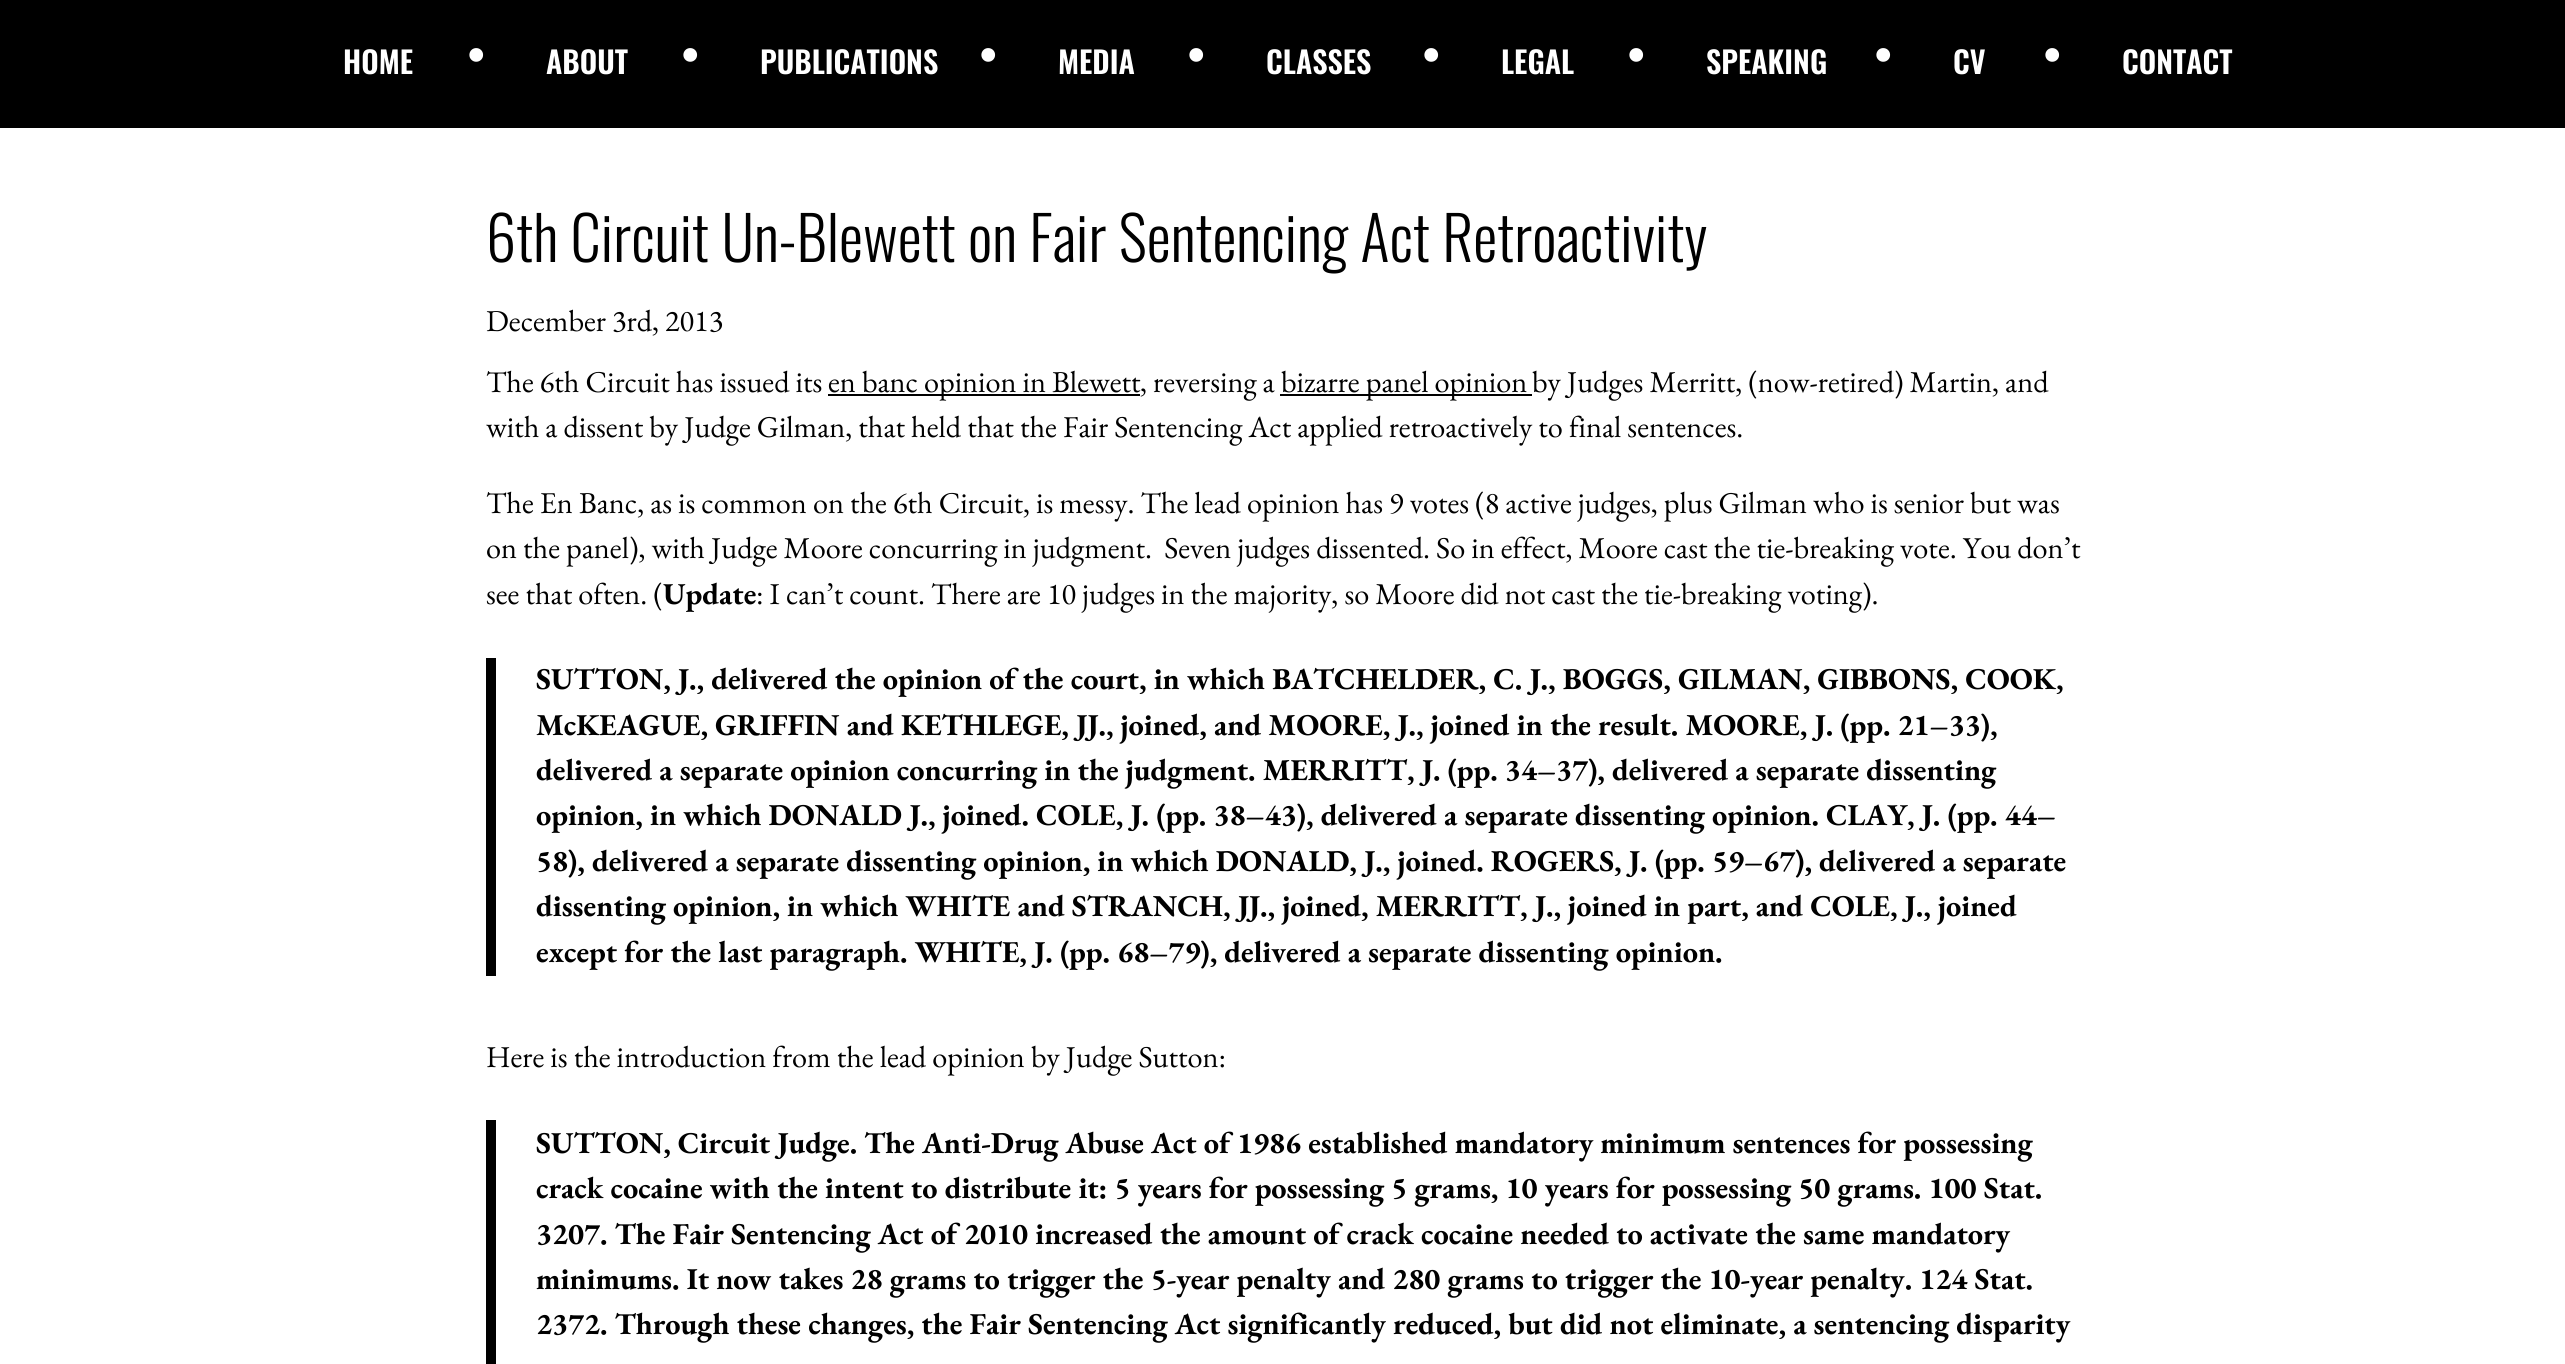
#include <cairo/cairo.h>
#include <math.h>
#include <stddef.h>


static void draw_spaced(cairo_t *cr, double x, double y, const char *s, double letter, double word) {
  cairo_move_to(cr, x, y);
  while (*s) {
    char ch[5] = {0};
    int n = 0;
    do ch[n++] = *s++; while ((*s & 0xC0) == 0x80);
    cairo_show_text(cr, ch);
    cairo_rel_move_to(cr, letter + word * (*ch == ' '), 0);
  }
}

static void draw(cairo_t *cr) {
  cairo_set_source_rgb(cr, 1, 1, 1);
  cairo_paint(cr);
  cairo_set_source_rgb(cr, 0, 0, 0);
  cairo_rectangle(cr, 0, 0, 2565, 128);
  cairo_fill(cr);
  cairo_rectangle(cr, 828, 394, 312, 2);
  cairo_fill(cr);
  cairo_rectangle(cr, 1280, 394, 252, 2);
  cairo_fill(cr);
  cairo_rectangle(cr, 486, 658, 10, 318);
  cairo_fill(cr);
  cairo_rectangle(cr, 486, 1120, 10, 244);
  cairo_fill(cr);
  cairo_select_font_face(cr, "Oswald SemiBold", CAIRO_FONT_SLANT_NORMAL, CAIRO_FONT_WEIGHT_NORMAL);
  cairo_set_font_size(cr, 30.3);
  cairo_set_source_rgb(cr, 1, 1, 1);
  cairo_move_to(cr, 343, 74);
  cairo_show_text(cr, "HOME");
  cairo_select_font_face(cr, "EB Garamond", CAIRO_FONT_SLANT_NORMAL, CAIRO_FONT_WEIGHT_NORMAL);
  cairo_set_font_size(cr, 53);
  cairo_move_to(cr, 467, 74);
  cairo_show_text(cr, "•");
  cairo_select_font_face(cr, "Oswald SemiBold", CAIRO_FONT_SLANT_NORMAL, CAIRO_FONT_WEIGHT_NORMAL);
  cairo_set_font_size(cr, 30.3);
  cairo_move_to(cr, 546, 74);
  cairo_show_text(cr, "ABOUT");
  cairo_select_font_face(cr, "EB Garamond", CAIRO_FONT_SLANT_NORMAL, CAIRO_FONT_WEIGHT_NORMAL);
  cairo_set_font_size(cr, 53);
  cairo_move_to(cr, 681, 74);
  cairo_show_text(cr, "•");
  cairo_select_font_face(cr, "Oswald SemiBold", CAIRO_FONT_SLANT_NORMAL, CAIRO_FONT_WEIGHT_NORMAL);
  cairo_set_font_size(cr, 30.3);
  cairo_move_to(cr, 760, 74);
  cairo_show_text(cr, "PUBLICATIONS");
  cairo_select_font_face(cr, "EB Garamond", CAIRO_FONT_SLANT_NORMAL, CAIRO_FONT_WEIGHT_NORMAL);
  cairo_set_font_size(cr, 53);
  cairo_move_to(cr, 979, 74);
  cairo_show_text(cr, "•");
  cairo_select_font_face(cr, "Oswald SemiBold", CAIRO_FONT_SLANT_NORMAL, CAIRO_FONT_WEIGHT_NORMAL);
  cairo_set_font_size(cr, 30.3);
  cairo_move_to(cr, 1058, 74);
  cairo_show_text(cr, "MEDIA");
  cairo_select_font_face(cr, "EB Garamond", CAIRO_FONT_SLANT_NORMAL, CAIRO_FONT_WEIGHT_NORMAL);
  cairo_set_font_size(cr, 53);
  cairo_move_to(cr, 1187, 74);
  cairo_show_text(cr, "•");
  cairo_select_font_face(cr, "Oswald SemiBold", CAIRO_FONT_SLANT_NORMAL, CAIRO_FONT_WEIGHT_NORMAL);
  cairo_set_font_size(cr, 30.3);
  cairo_move_to(cr, 1266, 74);
  cairo_show_text(cr, "CLASSES");
  cairo_select_font_face(cr, "EB Garamond", CAIRO_FONT_SLANT_NORMAL, CAIRO_FONT_WEIGHT_NORMAL);
  cairo_set_font_size(cr, 53);
  cairo_move_to(cr, 1422, 74);
  cairo_show_text(cr, "•");
  cairo_select_font_face(cr, "Oswald SemiBold", CAIRO_FONT_SLANT_NORMAL, CAIRO_FONT_WEIGHT_NORMAL);
  cairo_set_font_size(cr, 30.3);
  cairo_move_to(cr, 1501, 74);
  cairo_show_text(cr, "LEGAL");
  cairo_select_font_face(cr, "EB Garamond", CAIRO_FONT_SLANT_NORMAL, CAIRO_FONT_WEIGHT_NORMAL);
  cairo_set_font_size(cr, 53);
  cairo_move_to(cr, 1627, 74);
  cairo_show_text(cr, "•");
  cairo_select_font_face(cr, "Oswald SemiBold", CAIRO_FONT_SLANT_NORMAL, CAIRO_FONT_WEIGHT_NORMAL);
  cairo_set_font_size(cr, 30.3);
  cairo_move_to(cr, 1706, 74);
  cairo_show_text(cr, "SPEAKING");
  cairo_select_font_face(cr, "EB Garamond", CAIRO_FONT_SLANT_NORMAL, CAIRO_FONT_WEIGHT_NORMAL);
  cairo_set_font_size(cr, 53);
  cairo_move_to(cr, 1874, 74);
  cairo_show_text(cr, "•");
  cairo_select_font_face(cr, "Oswald SemiBold", CAIRO_FONT_SLANT_NORMAL, CAIRO_FONT_WEIGHT_NORMAL);
  cairo_set_font_size(cr, 30.3);
  cairo_move_to(cr, 1953, 74);
  cairo_show_text(cr, "CV");
  cairo_select_font_face(cr, "EB Garamond", CAIRO_FONT_SLANT_NORMAL, CAIRO_FONT_WEIGHT_NORMAL);
  cairo_set_font_size(cr, 53);
  cairo_move_to(cr, 2043, 74);
  cairo_show_text(cr, "•");
  cairo_select_font_face(cr, "Oswald SemiBold", CAIRO_FONT_SLANT_NORMAL, CAIRO_FONT_WEIGHT_NORMAL);
  cairo_set_font_size(cr, 30.3);
  cairo_move_to(cr, 2122, 74);
  cairo_show_text(cr, "CONTACT");
  cairo_select_font_face(cr, "Oswald Light", CAIRO_FONT_SLANT_NORMAL, CAIRO_FONT_WEIGHT_NORMAL);
  cairo_set_font_size(cr, 60.6);
  cairo_set_source_rgb(cr, 0, 0, 0);
  cairo_move_to(cr, 486, 262);
  cairo_show_text(cr, "6th Circuit Un-Blewett on Fair Sentencing Act Retroactivity");
  cairo_select_font_face(cr, "EB Garamond", CAIRO_FONT_SLANT_NORMAL, CAIRO_FONT_WEIGHT_NORMAL);
  cairo_set_font_size(cr, 30.3);
  cairo_move_to(cr, 486, 331);
  cairo_show_text(cr, "December 3rd, 2013");
  cairo_move_to(cr, 486, 392);
  cairo_show_text(cr, "The 6th Circuit has issued its");
  cairo_move_to(cr, 828, 392);
  cairo_show_text(cr, "en banc opinion in Blewett");
  cairo_move_to(cr, 1140, 392);
  cairo_show_text(cr, ", reversing a");
  cairo_move_to(cr, 1281, 392);
  cairo_show_text(cr, "bizarre panel opinion");
  cairo_move_to(cr, 1532, 392);
  cairo_show_text(cr, "by Judges Merritt, (now-retired) Martin, and");
  cairo_move_to(cr, 486, 437);
  cairo_show_text(cr, "with a dissent by Judge Gilman, that held that the Fair Sentencing Act applied retroactively to final sentences.");
  cairo_move_to(cr, 486, 513);
  cairo_show_text(cr, "The En Banc, as is common on the 6th Circuit, is messy. The lead opinion has 9 votes (8 active judges, plus Gilman who is senior but was");
  cairo_move_to(cr, 486, 558);
  cairo_show_text(cr, "on the panel), with Judge Moore concurring in judgment.  Seven judges dissented. So in effect, Moore cast the tie-breaking vote. You don’t");
  cairo_move_to(cr, 486, 604);
  cairo_show_text(cr, "see that often. (");
  cairo_select_font_face(cr, "EB Garamond", CAIRO_FONT_SLANT_NORMAL, CAIRO_FONT_WEIGHT_BOLD);
  cairo_move_to(cr, 663, 604);
  cairo_show_text(cr, "Update");
  cairo_select_font_face(cr, "EB Garamond", CAIRO_FONT_SLANT_NORMAL, CAIRO_FONT_WEIGHT_NORMAL);
  cairo_move_to(cr, 756, 604);
  cairo_show_text(cr, ": I can’t count. There are 10 judges in the majority, so Moore did not cast the tie-breaking voting).");
  cairo_select_font_face(cr, "EB Garamond", CAIRO_FONT_SLANT_NORMAL, CAIRO_FONT_WEIGHT_BOLD);
  cairo_move_to(cr, 536, 689);
  cairo_show_text(cr, "SUTTON, J., delivered the opinion of the court, in which BATCHELDER, C. J., BOGGS, GILMAN, GIBBONS, COOK,");
  cairo_move_to(cr, 536, 735);
  cairo_show_text(cr, "McKEAGUE, GRIFFIN and KETHLEGE, JJ., joined, and MOORE, J., joined in the result. MOORE, J. (pp. 21–33),");
  cairo_move_to(cr, 536, 780);
  cairo_show_text(cr, "delivered a separate opinion concurring in the judgment. MERRITT, J. (pp. 34–37), delivered a separate dissenting");
  cairo_move_to(cr, 536, 825);
  cairo_show_text(cr, "opinion, in which DONALD J., joined. COLE, J. (pp. 38–43), delivered a separate dissenting opinion. CLAY, J. (pp. 44–");
  cairo_move_to(cr, 536, 871);
  cairo_show_text(cr, "58), delivered a separate dissenting opinion, in which DONALD, J., joined. ROGERS, J. (pp. 59–67), delivered a separate");
  cairo_move_to(cr, 536, 916);
  cairo_show_text(cr, "dissenting opinion, in which WHITE and STRANCH, JJ., joined, MERRITT, J., joined in part, and COLE, J., joined");
  cairo_move_to(cr, 536, 962);
  cairo_show_text(cr, "except for the last paragraph. WHITE, J. (pp. 68–79), delivered a separate dissenting opinion.");
  cairo_select_font_face(cr, "EB Garamond", CAIRO_FONT_SLANT_NORMAL, CAIRO_FONT_WEIGHT_NORMAL);
  cairo_move_to(cr, 486, 1067);
  cairo_show_text(cr, "Here is the introduction from the lead opinion by Judge Sutton:");
  cairo_select_font_face(cr, "EB Garamond", CAIRO_FONT_SLANT_NORMAL, CAIRO_FONT_WEIGHT_BOLD);
  draw_spaced(cr, 536, 1153, "SUTTON, Circuit Judge. The Anti-Drug Abuse Act of 1986 established mandatory minimum sentences for possessing", 0, -0.1);
  cairo_move_to(cr, 536, 1198);
  cairo_show_text(cr, "crack cocaine with the intent to distribute it: 5 years for possessing 5 grams, 10 years for possessing 50 grams. 100 Stat.");
  cairo_move_to(cr, 536, 1244);
  cairo_show_text(cr, "3207. The Fair Sentencing Act of 2010 increased the amount of crack cocaine needed to activate the same mandatory");
  cairo_move_to(cr, 536, 1289);
  cairo_show_text(cr, "minimums. It now takes 28 grams to trigger the 5-year penalty and 280 grams to trigger the 10-year penalty. 124 Stat.");
  cairo_move_to(cr, 536, 1334);
  cairo_show_text(cr, "2372. Through these changes, the Fair Sentencing Act significantly reduced, but did not eliminate, a sentencing disparity");
}

int main(void) {
  cairo_surface_t *surface = cairo_image_surface_create(CAIRO_FORMAT_RGB24, 2565, 1364);
  cairo_t *cr = cairo_create(surface);
  cairo_font_options_t *options = cairo_font_options_create();
  cairo_font_options_set_hint_metrics(options, CAIRO_HINT_METRICS_OFF);
  cairo_font_options_set_hint_style(options, CAIRO_HINT_STYLE_NONE);
  cairo_set_font_options(cr, options);
  cairo_set_miter_limit(cr, 4);
  draw(cr);
  cairo_surface_write_to_png(surface, "out.png");
  cairo_font_options_destroy(options);
  cairo_destroy(cr);
  cairo_surface_destroy(surface);
  return 0;
}
